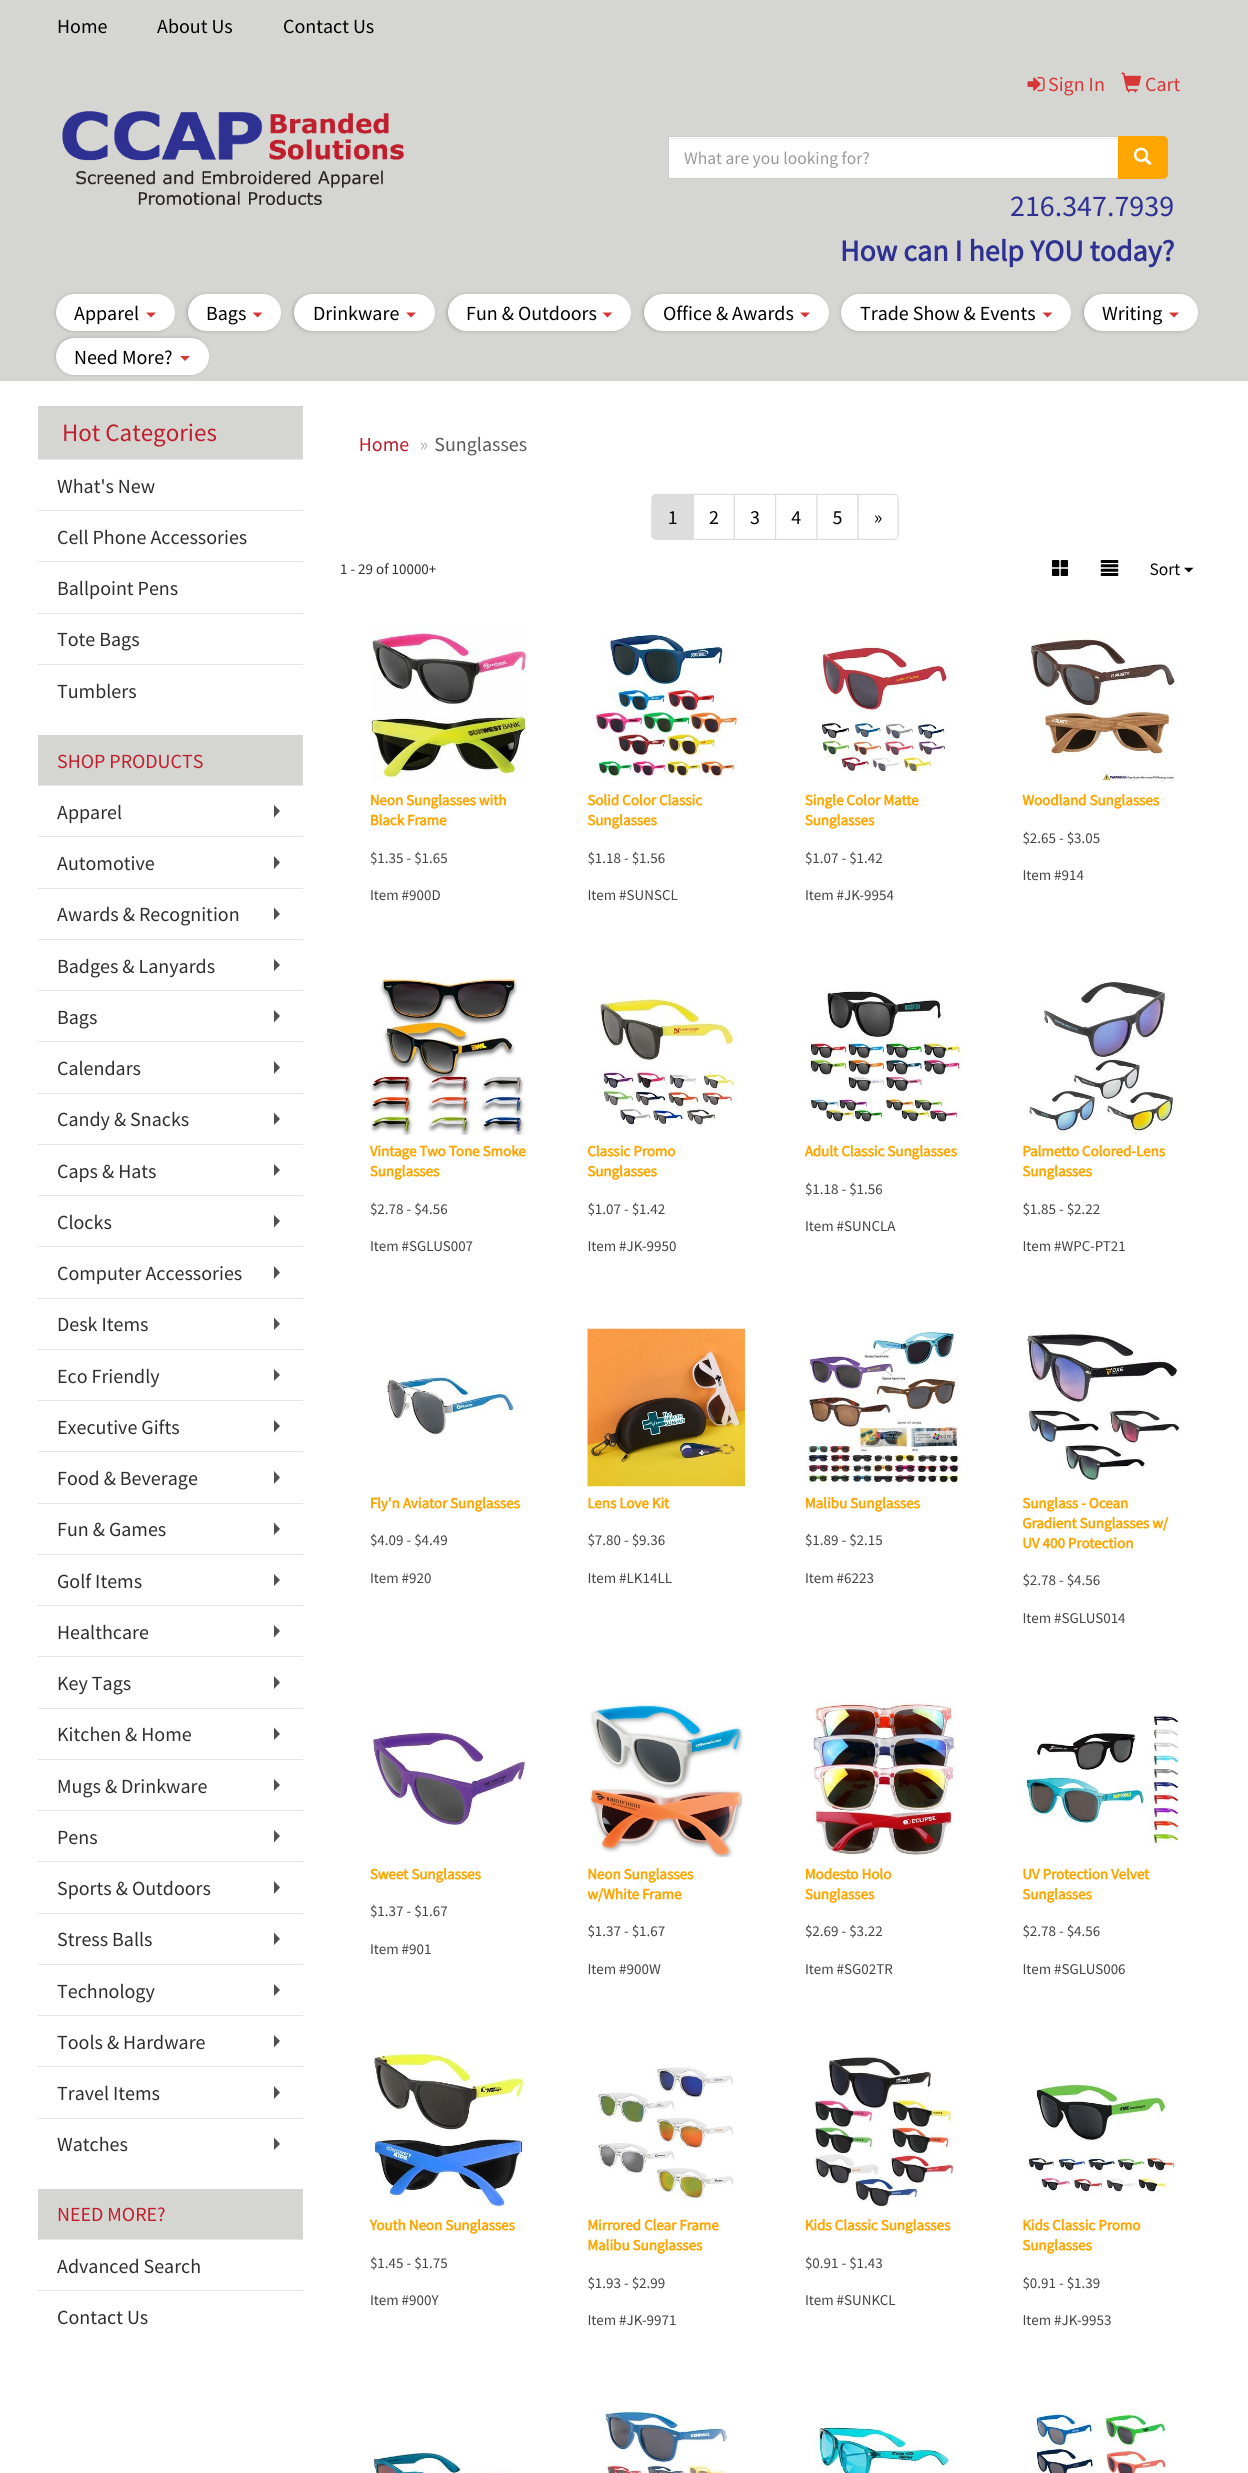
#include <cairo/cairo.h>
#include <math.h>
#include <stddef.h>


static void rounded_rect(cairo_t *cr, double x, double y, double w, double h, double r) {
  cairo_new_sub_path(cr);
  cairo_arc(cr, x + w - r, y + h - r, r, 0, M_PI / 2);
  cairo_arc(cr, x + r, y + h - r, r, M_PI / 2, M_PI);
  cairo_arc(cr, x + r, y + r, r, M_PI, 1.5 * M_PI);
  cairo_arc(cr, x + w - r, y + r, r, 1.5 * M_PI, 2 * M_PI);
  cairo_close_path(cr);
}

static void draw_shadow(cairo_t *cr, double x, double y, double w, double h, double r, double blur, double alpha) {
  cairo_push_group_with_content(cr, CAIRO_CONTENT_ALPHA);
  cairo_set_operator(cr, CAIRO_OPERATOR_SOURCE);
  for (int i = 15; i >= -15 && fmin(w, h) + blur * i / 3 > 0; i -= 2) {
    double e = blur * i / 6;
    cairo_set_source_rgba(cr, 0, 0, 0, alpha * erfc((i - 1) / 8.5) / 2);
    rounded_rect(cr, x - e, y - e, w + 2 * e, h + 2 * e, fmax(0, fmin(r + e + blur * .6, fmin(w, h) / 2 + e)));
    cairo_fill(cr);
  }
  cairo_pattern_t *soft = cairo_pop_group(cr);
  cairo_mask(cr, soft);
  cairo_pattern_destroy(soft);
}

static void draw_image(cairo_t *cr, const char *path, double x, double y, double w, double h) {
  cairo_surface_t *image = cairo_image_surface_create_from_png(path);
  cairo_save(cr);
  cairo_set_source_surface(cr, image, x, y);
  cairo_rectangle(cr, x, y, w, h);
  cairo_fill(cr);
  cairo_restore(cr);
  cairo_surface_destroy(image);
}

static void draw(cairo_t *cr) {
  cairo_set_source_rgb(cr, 213 / 255.0, 214 / 255.0, 210 / 255.0);
  cairo_paint(cr);
  draw_image(cr, "images/1.png", 1027, 76, 18, 16);
  draw_image(cr, "images/2.png", 1121, 72, 20, 21);
  draw_image(cr, "images/3.png", 62, 111, 342, 94);
  cairo_set_source_rgb(cr, 1, 1, 1);
  cairo_rectangle(cr, 669, 137, 449, 41);
  cairo_fill(cr);
  cairo_set_source_rgb(cr, 236 / 255.0, 236 / 255.0, 236 / 255.0);
  cairo_rectangle(cr, 669, 138, 449, 1);
  cairo_fill(cr);
  cairo_rectangle(cr, 668.5, 136.5, 450, 42);
  cairo_set_source_rgb(cr, 204 / 255.0, 204 / 255.0, 204 / 255.0);
  cairo_set_line_width(cr, 1);
  cairo_stroke(cr);
  cairo_set_source_rgb(cr, 1, 165 / 255.0, 0);
  cairo_new_path(cr);
  cairo_move_to(cr, 1118.5, 136.5);
  cairo_line_to(cr, 1163, 136.5);
  cairo_curve_to(cr, 1165.5, 136.5, 1167.5, 138.5, 1167.5, 141);
  cairo_line_to(cr, 1167.5, 174);
  cairo_curve_to(cr, 1167.5, 176.5, 1165.5, 178.5, 1163, 178.5);
  cairo_line_to(cr, 1118.5, 178.5);
  cairo_close_path(cr);
  cairo_fill_preserve(cr);
  cairo_stroke(cr);
  draw_image(cr, "images/4.png", 1133, 147, 19, 19);
  cairo_set_source_rgb(cr, 0, 0, 0);
  draw_shadow(cr, 59, 298, 111, 30, 15, 3, 0.75);
  cairo_set_source_rgb(cr, 1, 1, 1);
  rounded_rect(cr, 56, 294, 119, 37, 18.5);
  cairo_fill(cr);
  cairo_set_source_rgb(cr, 215 / 255.0, 54 / 255.0, 54 / 255.0);
  cairo_new_path(cr);
  cairo_move_to(cr, 146, 312.5);
  cairo_line_to(cr, 156, 312.5);
  cairo_line_to(cr, 151, 317.5);
  cairo_close_path(cr);
  cairo_fill(cr);
  cairo_set_source_rgb(cr, 0, 0, 0);
  draw_shadow(cr, 190, 298, 86, 30, 15, 3, 0.75);
  cairo_set_source_rgb(cr, 1, 1, 1);
  rounded_rect(cr, 188, 294, 93, 37, 18.5);
  cairo_fill(cr);
  cairo_set_source_rgb(cr, 215 / 255.0, 54 / 255.0, 54 / 255.0);
  cairo_new_path(cr);
  cairo_move_to(cr, 252.5, 312.5);
  cairo_line_to(cr, 262.5, 312.5);
  cairo_line_to(cr, 257.5, 317.5);
  cairo_close_path(cr);
  cairo_fill(cr);
  cairo_set_source_rgb(cr, 0, 0, 0);
  draw_shadow(cr, 296, 298, 134, 30, 15, 3, 0.75);
  cairo_set_source_rgb(cr, 1, 1, 1);
  rounded_rect(cr, 294, 294, 141, 37, 18.5);
  cairo_fill(cr);
  cairo_set_source_rgb(cr, 215 / 255.0, 54 / 255.0, 54 / 255.0);
  cairo_new_path(cr);
  cairo_move_to(cr, 406, 312.5);
  cairo_line_to(cr, 416, 312.5);
  cairo_line_to(cr, 411, 317.5);
  cairo_close_path(cr);
  cairo_fill(cr);
  cairo_set_source_rgb(cr, 0, 0, 0);
  draw_shadow(cr, 450, 298, 176, 30, 15, 3, 0.75);
  cairo_set_source_rgb(cr, 1, 1, 1);
  rounded_rect(cr, 448, 294, 183, 37, 18.5);
  cairo_fill(cr);
  cairo_set_source_rgb(cr, 215 / 255.0, 54 / 255.0, 54 / 255.0);
  cairo_new_path(cr);
  cairo_move_to(cr, 602.5, 312.5);
  cairo_line_to(cr, 612.5, 312.5);
  cairo_line_to(cr, 607.5, 317.5);
  cairo_close_path(cr);
  cairo_fill(cr);
  cairo_set_source_rgb(cr, 0, 0, 0);
  draw_shadow(cr, 646, 298, 178, 30, 15, 3, 0.75);
  cairo_set_source_rgb(cr, 1, 1, 1);
  rounded_rect(cr, 644, 294, 185, 37, 18.5);
  cairo_fill(cr);
  cairo_set_source_rgb(cr, 215 / 255.0, 54 / 255.0, 54 / 255.0);
  cairo_new_path(cr);
  cairo_move_to(cr, 800, 312.5);
  cairo_line_to(cr, 810, 312.5);
  cairo_line_to(cr, 805, 317.5);
  cairo_close_path(cr);
  cairo_fill(cr);
  cairo_set_source_rgb(cr, 0, 0, 0);
  draw_shadow(cr, 844, 298, 222, 30, 15, 3, 0.75);
  cairo_set_source_rgb(cr, 1, 1, 1);
  rounded_rect(cr, 841, 294, 230, 37, 18.5);
  cairo_fill(cr);
  cairo_set_source_rgb(cr, 215 / 255.0, 54 / 255.0, 54 / 255.0);
  cairo_new_path(cr);
  cairo_move_to(cr, 1042.5, 312.5);
  cairo_line_to(cr, 1052.5, 312.5);
  cairo_line_to(cr, 1047.5, 317.5);
  cairo_close_path(cr);
  cairo_fill(cr);
  cairo_set_source_rgb(cr, 0, 0, 0);
  draw_shadow(cr, 1086, 298, 107, 30, 15, 3, 0.75);
  cairo_set_source_rgb(cr, 1, 1, 1);
  rounded_rect(cr, 1084, 294, 114, 37, 18.5);
  cairo_fill(cr);
  cairo_set_source_rgb(cr, 215 / 255.0, 54 / 255.0, 54 / 255.0);
  cairo_new_path(cr);
  cairo_move_to(cr, 1169, 312.5);
  cairo_line_to(cr, 1179, 312.5);
  cairo_line_to(cr, 1174, 317.5);
  cairo_close_path(cr);
  cairo_fill(cr);
  cairo_set_source_rgb(cr, 0, 0, 0);
  draw_shadow(cr, 59, 341, 145, 30, 15, 3, 0.75);
  cairo_set_source_rgb(cr, 1, 1, 1);
  rounded_rect(cr, 56, 338, 153, 37, 18.5);
  cairo_fill(cr);
  cairo_set_source_rgb(cr, 215 / 255.0, 54 / 255.0, 54 / 255.0);
  cairo_new_path(cr);
  cairo_move_to(cr, 180, 356);
  cairo_line_to(cr, 190, 356);
  cairo_line_to(cr, 185, 361);
  cairo_close_path(cr);
  cairo_fill(cr);
  cairo_set_source_rgb(cr, 1, 1, 1);
  cairo_rectangle(cr, 0, 381, 1248, 2092);
  cairo_fill(cr);
  cairo_set_source_rgb(cr, 213 / 255.0, 214 / 255.0, 210 / 255.0);
  cairo_rectangle(cr, 38, 406, 265, 53);
  cairo_fill(cr);
  cairo_set_source_rgb(cr, 229 / 255.0, 229 / 255.0, 229 / 255.0);
  cairo_rectangle(cr, 38, 459, 265, 1);
  cairo_fill(cr);
  cairo_rectangle(cr, 38, 510, 265, 1);
  cairo_fill(cr);
  cairo_rectangle(cr, 38, 561, 265, 1);
  cairo_fill(cr);
  cairo_rectangle(cr, 38, 613, 265, 1);
  cairo_fill(cr);
  cairo_rectangle(cr, 38, 664, 265, 1);
  cairo_fill(cr);
  cairo_set_source_rgb(cr, 213 / 255.0, 214 / 255.0, 210 / 255.0);
  cairo_rectangle(cr, 38, 735, 265, 50);
  cairo_fill(cr);
  cairo_set_source_rgb(cr, 229 / 255.0, 229 / 255.0, 229 / 255.0);
  cairo_rectangle(cr, 38, 785, 265, 1);
  cairo_fill(cr);
  cairo_set_source_rgb(cr, 81 / 255.0, 80 / 255.0, 80 / 255.0);
  cairo_new_path(cr);
  cairo_move_to(cr, 274, 817.5);
  cairo_line_to(cr, 274, 805);
  cairo_line_to(cr, 280, 811);
  cairo_close_path(cr);
  cairo_fill(cr);
  cairo_set_source_rgb(cr, 229 / 255.0, 229 / 255.0, 229 / 255.0);
  cairo_rectangle(cr, 38, 836, 265, 1);
  cairo_fill(cr);
  cairo_set_source_rgb(cr, 81 / 255.0, 80 / 255.0, 80 / 255.0);
  cairo_new_path(cr);
  cairo_move_to(cr, 274, 869);
  cairo_line_to(cr, 274, 856);
  cairo_line_to(cr, 280, 862.5);
  cairo_close_path(cr);
  cairo_fill(cr);
  cairo_set_source_rgb(cr, 229 / 255.0, 229 / 255.0, 229 / 255.0);
  cairo_rectangle(cr, 38, 888, 265, 1);
  cairo_fill(cr);
  cairo_set_source_rgb(cr, 81 / 255.0, 80 / 255.0, 80 / 255.0);
  cairo_new_path(cr);
  cairo_move_to(cr, 274, 920);
  cairo_line_to(cr, 274, 907.5);
  cairo_line_to(cr, 280, 914);
  cairo_close_path(cr);
  cairo_fill(cr);
  cairo_set_source_rgb(cr, 229 / 255.0, 229 / 255.0, 229 / 255.0);
  cairo_rectangle(cr, 38, 939, 265, 1);
  cairo_fill(cr);
  cairo_set_source_rgb(cr, 81 / 255.0, 80 / 255.0, 80 / 255.0);
  cairo_new_path(cr);
  cairo_move_to(cr, 274, 971);
  cairo_line_to(cr, 274, 959);
  cairo_line_to(cr, 280, 965);
  cairo_close_path(cr);
  cairo_fill(cr);
  cairo_set_source_rgb(cr, 229 / 255.0, 229 / 255.0, 229 / 255.0);
  cairo_rectangle(cr, 38, 990, 265, 1);
  cairo_fill(cr);
  cairo_set_source_rgb(cr, 81 / 255.0, 80 / 255.0, 80 / 255.0);
  cairo_new_path(cr);
  cairo_move_to(cr, 274, 1022.5);
  cairo_line_to(cr, 274, 1010);
  cairo_line_to(cr, 280, 1016);
  cairo_close_path(cr);
  cairo_fill(cr);
  cairo_set_source_rgb(cr, 229 / 255.0, 229 / 255.0, 229 / 255.0);
  cairo_rectangle(cr, 38, 1041, 265, 1);
  cairo_fill(cr);
  cairo_set_source_rgb(cr, 81 / 255.0, 80 / 255.0, 80 / 255.0);
  cairo_new_path(cr);
  cairo_move_to(cr, 274, 1074);
  cairo_line_to(cr, 274, 1061);
  cairo_line_to(cr, 280, 1067.5);
  cairo_close_path(cr);
  cairo_fill(cr);
  cairo_set_source_rgb(cr, 229 / 255.0, 229 / 255.0, 229 / 255.0);
  cairo_rectangle(cr, 38, 1093, 265, 1);
  cairo_fill(cr);
  cairo_set_source_rgb(cr, 81 / 255.0, 80 / 255.0, 80 / 255.0);
  cairo_new_path(cr);
  cairo_move_to(cr, 274, 1125);
  cairo_line_to(cr, 274, 1112.5);
  cairo_line_to(cr, 280, 1119);
  cairo_close_path(cr);
  cairo_fill(cr);
  cairo_set_source_rgb(cr, 229 / 255.0, 229 / 255.0, 229 / 255.0);
  cairo_rectangle(cr, 38, 1144, 265, 1);
  cairo_fill(cr);
  cairo_set_source_rgb(cr, 81 / 255.0, 80 / 255.0, 80 / 255.0);
  cairo_new_path(cr);
  cairo_move_to(cr, 274, 1176);
  cairo_line_to(cr, 274, 1164);
  cairo_line_to(cr, 280, 1170);
  cairo_close_path(cr);
  cairo_fill(cr);
  cairo_set_source_rgb(cr, 229 / 255.0, 229 / 255.0, 229 / 255.0);
  cairo_rectangle(cr, 38, 1195, 265, 1);
  cairo_fill(cr);
  cairo_set_source_rgb(cr, 81 / 255.0, 80 / 255.0, 80 / 255.0);
  cairo_new_path(cr);
  cairo_move_to(cr, 274, 1227.5);
  cairo_line_to(cr, 274, 1215);
  cairo_line_to(cr, 280, 1221);
  cairo_close_path(cr);
  cairo_fill(cr);
  cairo_set_source_rgb(cr, 229 / 255.0, 229 / 255.0, 229 / 255.0);
  cairo_rectangle(cr, 38, 1246, 265, 1);
  cairo_fill(cr);
  cairo_set_source_rgb(cr, 81 / 255.0, 80 / 255.0, 80 / 255.0);
  cairo_new_path(cr);
  cairo_move_to(cr, 274, 1279);
  cairo_line_to(cr, 274, 1266);
  cairo_line_to(cr, 280, 1272.5);
  cairo_close_path(cr);
  cairo_fill(cr);
  cairo_set_source_rgb(cr, 229 / 255.0, 229 / 255.0, 229 / 255.0);
  cairo_rectangle(cr, 38, 1298, 265, 1);
  cairo_fill(cr);
  cairo_set_source_rgb(cr, 81 / 255.0, 80 / 255.0, 80 / 255.0);
  cairo_new_path(cr);
  cairo_move_to(cr, 274, 1330);
  cairo_line_to(cr, 274, 1317.5);
  cairo_line_to(cr, 280, 1324);
  cairo_close_path(cr);
  cairo_fill(cr);
  cairo_set_source_rgb(cr, 229 / 255.0, 229 / 255.0, 229 / 255.0);
  cairo_rectangle(cr, 38, 1349, 265, 1);
  cairo_fill(cr);
  cairo_set_source_rgb(cr, 81 / 255.0, 80 / 255.0, 80 / 255.0);
  cairo_new_path(cr);
  cairo_move_to(cr, 274, 1381);
  cairo_line_to(cr, 274, 1369);
  cairo_line_to(cr, 280, 1375);
  cairo_close_path(cr);
  cairo_fill(cr);
  cairo_set_source_rgb(cr, 229 / 255.0, 229 / 255.0, 229 / 255.0);
  cairo_rectangle(cr, 38, 1400, 265, 1);
  cairo_fill(cr);
  cairo_set_source_rgb(cr, 81 / 255.0, 80 / 255.0, 80 / 255.0);
  cairo_new_path(cr);
  cairo_move_to(cr, 274, 1432.5);
  cairo_line_to(cr, 274, 1420);
  cairo_line_to(cr, 280, 1426);
  cairo_close_path(cr);
  cairo_fill(cr);
  cairo_set_source_rgb(cr, 229 / 255.0, 229 / 255.0, 229 / 255.0);
  cairo_rectangle(cr, 38, 1451, 265, 1);
  cairo_fill(cr);
  cairo_set_source_rgb(cr, 81 / 255.0, 80 / 255.0, 80 / 255.0);
  cairo_new_path(cr);
  cairo_move_to(cr, 274, 1484);
  cairo_line_to(cr, 274, 1471);
  cairo_line_to(cr, 280, 1477.5);
  cairo_close_path(cr);
  cairo_fill(cr);
  cairo_set_source_rgb(cr, 229 / 255.0, 229 / 255.0, 229 / 255.0);
  cairo_rectangle(cr, 38, 1503, 265, 1);
  cairo_fill(cr);
  cairo_set_source_rgb(cr, 81 / 255.0, 80 / 255.0, 80 / 255.0);
  cairo_new_path(cr);
  cairo_move_to(cr, 274, 1535);
  cairo_line_to(cr, 274, 1522.5);
  cairo_line_to(cr, 280, 1529);
  cairo_close_path(cr);
  cairo_fill(cr);
  cairo_set_source_rgb(cr, 229 / 255.0, 229 / 255.0, 229 / 255.0);
  cairo_rectangle(cr, 38, 1554, 265, 1);
  cairo_fill(cr);
  cairo_set_source_rgb(cr, 81 / 255.0, 80 / 255.0, 80 / 255.0);
  cairo_new_path(cr);
  cairo_move_to(cr, 274, 1586);
  cairo_line_to(cr, 274, 1574);
  cairo_line_to(cr, 280, 1580);
  cairo_close_path(cr);
  cairo_fill(cr);
  cairo_set_source_rgb(cr, 229 / 255.0, 229 / 255.0, 229 / 255.0);
  cairo_rectangle(cr, 38, 1605, 265, 1);
  cairo_fill(cr);
  cairo_set_source_rgb(cr, 81 / 255.0, 80 / 255.0, 80 / 255.0);
  cairo_new_path(cr);
  cairo_move_to(cr, 274, 1637.5);
  cairo_line_to(cr, 274, 1625);
  cairo_line_to(cr, 280, 1631);
  cairo_close_path(cr);
  cairo_fill(cr);
  cairo_set_source_rgb(cr, 229 / 255.0, 229 / 255.0, 229 / 255.0);
  cairo_rectangle(cr, 38, 1656, 265, 1);
  cairo_fill(cr);
  cairo_set_source_rgb(cr, 81 / 255.0, 80 / 255.0, 80 / 255.0);
  cairo_new_path(cr);
  cairo_move_to(cr, 274, 1689);
  cairo_line_to(cr, 274, 1676);
  cairo_line_to(cr, 280, 1682.5);
  cairo_close_path(cr);
  cairo_fill(cr);
  cairo_set_source_rgb(cr, 229 / 255.0, 229 / 255.0, 229 / 255.0);
  cairo_rectangle(cr, 38, 1708, 265, 1);
  cairo_fill(cr);
  cairo_set_source_rgb(cr, 81 / 255.0, 80 / 255.0, 80 / 255.0);
  cairo_new_path(cr);
  cairo_move_to(cr, 274, 1740);
  cairo_line_to(cr, 274, 1727.5);
  cairo_line_to(cr, 280, 1734);
  cairo_close_path(cr);
  cairo_fill(cr);
  cairo_set_source_rgb(cr, 229 / 255.0, 229 / 255.0, 229 / 255.0);
  cairo_rectangle(cr, 38, 1759, 265, 1);
  cairo_fill(cr);
  cairo_set_source_rgb(cr, 81 / 255.0, 80 / 255.0, 80 / 255.0);
  cairo_new_path(cr);
  cairo_move_to(cr, 274, 1791);
  cairo_line_to(cr, 274, 1779);
  cairo_line_to(cr, 280, 1785);
  cairo_close_path(cr);
  cairo_fill(cr);
  cairo_set_source_rgb(cr, 229 / 255.0, 229 / 255.0, 229 / 255.0);
  cairo_rectangle(cr, 38, 1810, 265, 1);
  cairo_fill(cr);
  cairo_set_source_rgb(cr, 81 / 255.0, 80 / 255.0, 80 / 255.0);
  cairo_new_path(cr);
  cairo_move_to(cr, 274, 1842.5);
  cairo_line_to(cr, 274, 1830);
  cairo_line_to(cr, 280, 1836);
  cairo_close_path(cr);
  cairo_fill(cr);
  cairo_set_source_rgb(cr, 229 / 255.0, 229 / 255.0, 229 / 255.0);
  cairo_rectangle(cr, 38, 1861, 265, 1);
  cairo_fill(cr);
  cairo_set_source_rgb(cr, 81 / 255.0, 80 / 255.0, 80 / 255.0);
  cairo_new_path(cr);
  cairo_move_to(cr, 274, 1894);
  cairo_line_to(cr, 274, 1881);
  cairo_line_to(cr, 280, 1887.5);
  cairo_close_path(cr);
  cairo_fill(cr);
  cairo_set_source_rgb(cr, 229 / 255.0, 229 / 255.0, 229 / 255.0);
  cairo_rectangle(cr, 38, 1913, 265, 1);
  cairo_fill(cr);
  cairo_set_source_rgb(cr, 81 / 255.0, 80 / 255.0, 80 / 255.0);
  cairo_new_path(cr);
  cairo_move_to(cr, 274, 1945);
  cairo_line_to(cr, 274, 1932.5);
  cairo_line_to(cr, 280, 1939);
  cairo_close_path(cr);
  cairo_fill(cr);
  cairo_set_source_rgb(cr, 229 / 255.0, 229 / 255.0, 229 / 255.0);
  cairo_rectangle(cr, 38, 1964, 265, 1);
  cairo_fill(cr);
  cairo_set_source_rgb(cr, 81 / 255.0, 80 / 255.0, 80 / 255.0);
  cairo_new_path(cr);
  cairo_move_to(cr, 274, 1996);
  cairo_line_to(cr, 274, 1984);
  cairo_line_to(cr, 280, 1990);
  cairo_close_path(cr);
  cairo_fill(cr);
  cairo_set_source_rgb(cr, 229 / 255.0, 229 / 255.0, 229 / 255.0);
  cairo_rectangle(cr, 38, 2015, 265, 1);
  cairo_fill(cr);
  cairo_set_source_rgb(cr, 81 / 255.0, 80 / 255.0, 80 / 255.0);
  cairo_new_path(cr);
  cairo_move_to(cr, 274, 2047.5);
  cairo_line_to(cr, 274, 2035);
  cairo_line_to(cr, 280, 2041);
  cairo_close_path(cr);
  cairo_fill(cr);
  cairo_set_source_rgb(cr, 229 / 255.0, 229 / 255.0, 229 / 255.0);
  cairo_rectangle(cr, 38, 2066, 265, 1);
  cairo_fill(cr);
  cairo_set_source_rgb(cr, 81 / 255.0, 80 / 255.0, 80 / 255.0);
  cairo_new_path(cr);
  cairo_move_to(cr, 274, 2099);
  cairo_line_to(cr, 274, 2086);
  cairo_line_to(cr, 280, 2092.5);
  cairo_close_path(cr);
  cairo_fill(cr);
  cairo_set_source_rgb(cr, 229 / 255.0, 229 / 255.0, 229 / 255.0);
  cairo_rectangle(cr, 38, 2118, 265, 1);
  cairo_fill(cr);
  cairo_set_source_rgb(cr, 81 / 255.0, 80 / 255.0, 80 / 255.0);
  cairo_new_path(cr);
  cairo_move_to(cr, 274, 2150);
  cairo_line_to(cr, 274, 2137.5);
  cairo_line_to(cr, 280, 2144);
  cairo_close_path(cr);
  cairo_fill(cr);
  cairo_set_source_rgb(cr, 213 / 255.0, 214 / 255.0, 210 / 255.0);
  cairo_rectangle(cr, 38, 2189, 265, 50);
  cairo_fill(cr);
  cairo_set_source_rgb(cr, 229 / 255.0, 229 / 255.0, 229 / 255.0);
  cairo_rectangle(cr, 38, 2239, 265, 1);
  cairo_fill(cr);
  cairo_rectangle(cr, 38, 2290, 265, 1);
  cairo_fill(cr);
  draw_image(cr, "images/5.png", 341, 436, 853, 2037);
  cairo_select_font_face(cr, "Source Sans Pro", CAIRO_FONT_SLANT_NORMAL, CAIRO_FONT_WEIGHT_NORMAL);
  cairo_set_font_size(cr, 20);
  cairo_set_source_rgb(cr, 0, 0, 0);
  cairo_move_to(cr, 57, 33);
  cairo_show_text(cr, "Home");
  cairo_move_to(cr, 157, 33);
  cairo_show_text(cr, "About Us");
  cairo_move_to(cr, 283, 33);
  cairo_show_text(cr, "Contact Us");
  cairo_set_source_rgb(cr, 215 / 255.0, 54 / 255.0, 54 / 255.0);
  cairo_move_to(cr, 1048, 91);
  cairo_show_text(cr, "Sign In");
  cairo_move_to(cr, 1145, 91);
  cairo_show_text(cr, "Cart");
  cairo_set_font_size(cr, 17.5);
  cairo_set_source_rgb(cr, 153 / 255.0, 153 / 255.0, 153 / 255.0);
  cairo_move_to(cr, 684, 164);
  cairo_show_text(cr, "What are you looking for?");
  cairo_set_font_size(cr, 30);
  cairo_set_source_rgb(cr, 46 / 255.0, 49 / 255.0, 146 / 255.0);
  cairo_move_to(cr, 1010, 216);
  cairo_show_text(cr, "216.347.7939");
  cairo_select_font_face(cr, "Source Sans Pro", CAIRO_FONT_SLANT_NORMAL, CAIRO_FONT_WEIGHT_BOLD);
  cairo_move_to(cr, 840, 261);
  cairo_show_text(cr, "How can I help YOU today?");
  cairo_select_font_face(cr, "Source Sans Pro", CAIRO_FONT_SLANT_NORMAL, CAIRO_FONT_WEIGHT_NORMAL);
  cairo_set_font_size(cr, 20);
  cairo_set_source_rgb(cr, 0, 0, 0);
  cairo_move_to(cr, 74, 320);
  cairo_show_text(cr, "Apparel");
  cairo_move_to(cr, 206, 320);
  cairo_show_text(cr, "Bags");
  cairo_move_to(cr, 313, 320);
  cairo_show_text(cr, "Drinkware");
  cairo_move_to(cr, 466, 320);
  cairo_show_text(cr, "Fun & Outdoors");
  cairo_move_to(cr, 663, 320);
  cairo_show_text(cr, "Office & Awards");
  cairo_move_to(cr, 860, 320);
  cairo_show_text(cr, "Trade Show & Events");
  cairo_move_to(cr, 1102, 320);
  cairo_show_text(cr, "Writing");
  cairo_move_to(cr, 74, 364);
  cairo_show_text(cr, "Need More?");
  cairo_set_font_size(cr, 25);
  cairo_set_source_rgb(cr, 190 / 255.0, 30 / 255.0, 45 / 255.0);
  cairo_move_to(cr, 62, 441);
  cairo_show_text(cr, "Hot Categories");
  cairo_set_font_size(cr, 20);
  cairo_set_source_rgb(cr, 46 / 255.0, 46 / 255.0, 46 / 255.0);
  cairo_move_to(cr, 57, 493);
  cairo_show_text(cr, "What's New");
  cairo_move_to(cr, 57, 544);
  cairo_show_text(cr, "Cell Phone Accessories");
  cairo_move_to(cr, 57, 595);
  cairo_show_text(cr, "Ballpoint Pens");
  cairo_move_to(cr, 57, 646);
  cairo_show_text(cr, "Tote Bags");
  cairo_move_to(cr, 57, 698);
  cairo_show_text(cr, "Tumblers");
  cairo_set_source_rgb(cr, 190 / 255.0, 30 / 255.0, 45 / 255.0);
  cairo_move_to(cr, 57, 768);
  cairo_show_text(cr, "SHOP PRODUCTS");
  cairo_set_source_rgb(cr, 46 / 255.0, 46 / 255.0, 46 / 255.0);
  cairo_move_to(cr, 57, 819);
  cairo_show_text(cr, "Apparel");
  cairo_move_to(cr, 57, 870);
  cairo_show_text(cr, "Automotive");
  cairo_move_to(cr, 57, 921);
  cairo_show_text(cr, "Awards & Recognition");
  cairo_move_to(cr, 57, 973);
  cairo_show_text(cr, "Badges & Lanyards");
  cairo_move_to(cr, 57, 1024);
  cairo_show_text(cr, "Bags");
  cairo_move_to(cr, 57, 1075);
  cairo_show_text(cr, "Calendars");
  cairo_move_to(cr, 57, 1126);
  cairo_show_text(cr, "Candy & Snacks");
  cairo_move_to(cr, 57, 1178);
  cairo_show_text(cr, "Caps & Hats");
  cairo_move_to(cr, 57, 1229);
  cairo_show_text(cr, "Clocks");
  cairo_move_to(cr, 57, 1280);
  cairo_show_text(cr, "Computer Accessories");
  cairo_move_to(cr, 57, 1331);
  cairo_show_text(cr, "Desk Items");
  cairo_move_to(cr, 57, 1383);
  cairo_show_text(cr, "Eco Friendly");
  cairo_move_to(cr, 57, 1434);
  cairo_show_text(cr, "Executive Gifts");
  cairo_move_to(cr, 57, 1485);
  cairo_show_text(cr, "Food & Beverage");
  cairo_move_to(cr, 57, 1536);
  cairo_show_text(cr, "Fun & Games");
  cairo_move_to(cr, 57, 1588);
  cairo_show_text(cr, "Golf Items");
  cairo_move_to(cr, 57, 1639);
  cairo_show_text(cr, "Healthcare");
  cairo_move_to(cr, 57, 1690);
  cairo_show_text(cr, "Key Tags");
  cairo_move_to(cr, 57, 1741);
  cairo_show_text(cr, "Kitchen & Home");
  cairo_move_to(cr, 57, 1793);
  cairo_show_text(cr, "Mugs & Drinkware");
  cairo_move_to(cr, 57, 1844);
  cairo_show_text(cr, "Pens");
  cairo_move_to(cr, 57, 1895);
  cairo_show_text(cr, "Sports & Outdoors");
  cairo_move_to(cr, 57, 1946);
  cairo_show_text(cr, "Stress Balls");
  cairo_move_to(cr, 57, 1998);
  cairo_show_text(cr, "Technology");
  cairo_move_to(cr, 57, 2049);
  cairo_show_text(cr, "Tools & Hardware");
  cairo_move_to(cr, 57, 2100);
  cairo_show_text(cr, "Travel Items");
  cairo_move_to(cr, 57, 2151);
  cairo_show_text(cr, "Watches");
  cairo_set_source_rgb(cr, 190 / 255.0, 30 / 255.0, 45 / 255.0);
  cairo_move_to(cr, 57, 2221);
  cairo_show_text(cr, "NEED MORE?");
  cairo_set_source_rgb(cr, 46 / 255.0, 46 / 255.0, 46 / 255.0);
  cairo_move_to(cr, 57, 2273);
  cairo_show_text(cr, "Advanced Search");
  cairo_move_to(cr, 57, 2324);
  cairo_show_text(cr, "Contact Us");
}

int main(void) {
  cairo_surface_t *surface = cairo_image_surface_create(CAIRO_FORMAT_RGB24, 1248, 2473);
  cairo_t *cr = cairo_create(surface);
  cairo_font_options_t *options = cairo_font_options_create();
  cairo_font_options_set_hint_metrics(options, CAIRO_HINT_METRICS_OFF);
  cairo_font_options_set_hint_style(options, CAIRO_HINT_STYLE_NONE);
  cairo_set_font_options(cr, options);
  cairo_set_miter_limit(cr, 4);
  draw(cr);
  cairo_surface_write_to_png(surface, "out.png");
  cairo_font_options_destroy(options);
  cairo_destroy(cr);
  cairo_surface_destroy(surface);
  return 0;
}
